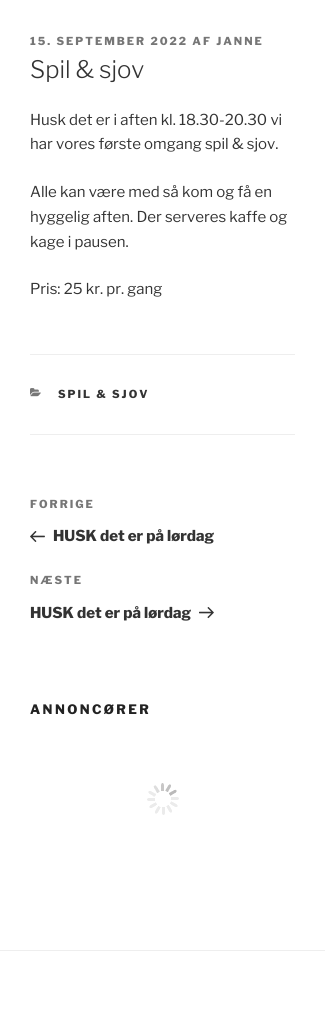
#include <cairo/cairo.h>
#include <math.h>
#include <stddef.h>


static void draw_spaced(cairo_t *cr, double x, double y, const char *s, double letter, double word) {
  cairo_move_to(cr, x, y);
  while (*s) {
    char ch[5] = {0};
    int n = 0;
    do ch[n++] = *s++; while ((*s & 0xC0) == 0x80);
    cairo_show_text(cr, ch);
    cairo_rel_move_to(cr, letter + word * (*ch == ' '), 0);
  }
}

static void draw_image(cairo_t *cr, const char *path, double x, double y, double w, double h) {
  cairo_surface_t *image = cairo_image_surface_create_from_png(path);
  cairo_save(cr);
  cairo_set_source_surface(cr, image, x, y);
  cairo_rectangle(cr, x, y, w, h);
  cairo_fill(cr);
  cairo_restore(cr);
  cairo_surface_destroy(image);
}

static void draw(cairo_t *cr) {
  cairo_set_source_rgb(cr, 1, 1, 1);
  cairo_paint(cr);
  cairo_set_source_rgb(cr, 238 / 255.0, 238 / 255.0, 238 / 255.0);
  cairo_rectangle(cr, 30, 354, 265, 1);
  cairo_fill(cr);
  cairo_rectangle(cr, 30, 434, 265, 1);
  cairo_fill(cr);
  draw_image(cr, "images/1.png", 30, 388, 11, 9);
  draw_image(cr, "images/2.png", 30, 531, 15, 11);
  draw_image(cr, "images/3.png", 199, 607, 15, 12);
  draw_image(cr, "images/4.png", 147, 783, 32, 32);
  cairo_rectangle(cr, 0, 950, 325, 1);
  cairo_fill(cr);
  cairo_select_font_face(cr, "Libre Franklin ExtraBold", CAIRO_FONT_SLANT_NORMAL, CAIRO_FONT_WEIGHT_NORMAL);
  cairo_set_font_size(cr, 11);
  cairo_set_source_rgb(cr, 118 / 255.0, 118 / 255.0, 118 / 255.0);
  draw_spaced(cr, 30, 45, "15. SEPTEMBER 2022 AF JANNE", 2, 0);
  cairo_select_font_face(cr, "Libre Franklin Light", CAIRO_FONT_SLANT_NORMAL, CAIRO_FONT_WEIGHT_NORMAL);
  cairo_set_font_size(cr, 24);
  cairo_set_source_rgb(cr, 51 / 255.0, 51 / 255.0, 51 / 255.0);
  cairo_move_to(cr, 30, 78);
  cairo_show_text(cr, "Spil & sjov");
  cairo_select_font_face(cr, "Libre Franklin", CAIRO_FONT_SLANT_NORMAL, CAIRO_FONT_WEIGHT_NORMAL);
  cairo_set_font_size(cr, 15);
  cairo_move_to(cr, 30, 125);
  cairo_show_text(cr, "Husk det er i aften kl. 18.30-20.30 vi");
  cairo_move_to(cr, 30, 149);
  cairo_show_text(cr, "har vores første omgang spil & sjov.");
  cairo_move_to(cr, 30, 197);
  cairo_show_text(cr, "Alle kan være med så kom og få en");
  cairo_move_to(cr, 30, 222);
  cairo_show_text(cr, "hyggelig aften. Der serveres kaffe og");
  cairo_move_to(cr, 30, 247);
  cairo_show_text(cr, "kage i pausen.");
  cairo_move_to(cr, 30, 294);
  cairo_show_text(cr, "Pris: 25 kr. pr. gang");
  cairo_select_font_face(cr, "Libre Franklin ExtraBold", CAIRO_FONT_SLANT_NORMAL, CAIRO_FONT_WEIGHT_NORMAL);
  cairo_set_font_size(cr, 11);
  draw_spaced(cr, 58, 398, "SPIL & SJOV", 2, 0);
  cairo_set_source_rgb(cr, 118 / 255.0, 118 / 255.0, 118 / 255.0);
  draw_spaced(cr, 30, 508, "FORRIGE", 2, 0);
  cairo_set_font_size(cr, 15);
  cairo_set_source_rgb(cr, 51 / 255.0, 51 / 255.0, 51 / 255.0);
  cairo_move_to(cr, 53, 541);
  cairo_show_text(cr, "HUSK det er på lørdag");
  cairo_set_font_size(cr, 11);
  cairo_set_source_rgb(cr, 118 / 255.0, 118 / 255.0, 118 / 255.0);
  draw_spaced(cr, 30, 584, "NÆSTE", 2, 0);
  cairo_set_font_size(cr, 15);
  cairo_set_source_rgb(cr, 51 / 255.0, 51 / 255.0, 51 / 255.0);
  cairo_move_to(cr, 30, 618);
  cairo_show_text(cr, "HUSK det er på lørdag");
  cairo_set_font_size(cr, 13);
  cairo_set_source_rgb(cr, 34 / 255.0, 34 / 255.0, 34 / 255.0);
  draw_spaced(cr, 30, 714, "ANNONCØRER", 2.4, 0);
}

int main(void) {
  cairo_surface_t *surface = cairo_image_surface_create(CAIRO_FORMAT_RGB24, 325, 1020);
  cairo_t *cr = cairo_create(surface);
  cairo_font_options_t *options = cairo_font_options_create();
  cairo_font_options_set_hint_metrics(options, CAIRO_HINT_METRICS_OFF);
  cairo_font_options_set_hint_style(options, CAIRO_HINT_STYLE_NONE);
  cairo_set_font_options(cr, options);
  cairo_set_miter_limit(cr, 4);
  draw(cr);
  cairo_surface_write_to_png(surface, "out.png");
  cairo_font_options_destroy(options);
  cairo_destroy(cr);
  cairo_surface_destroy(surface);
  return 0;
}
